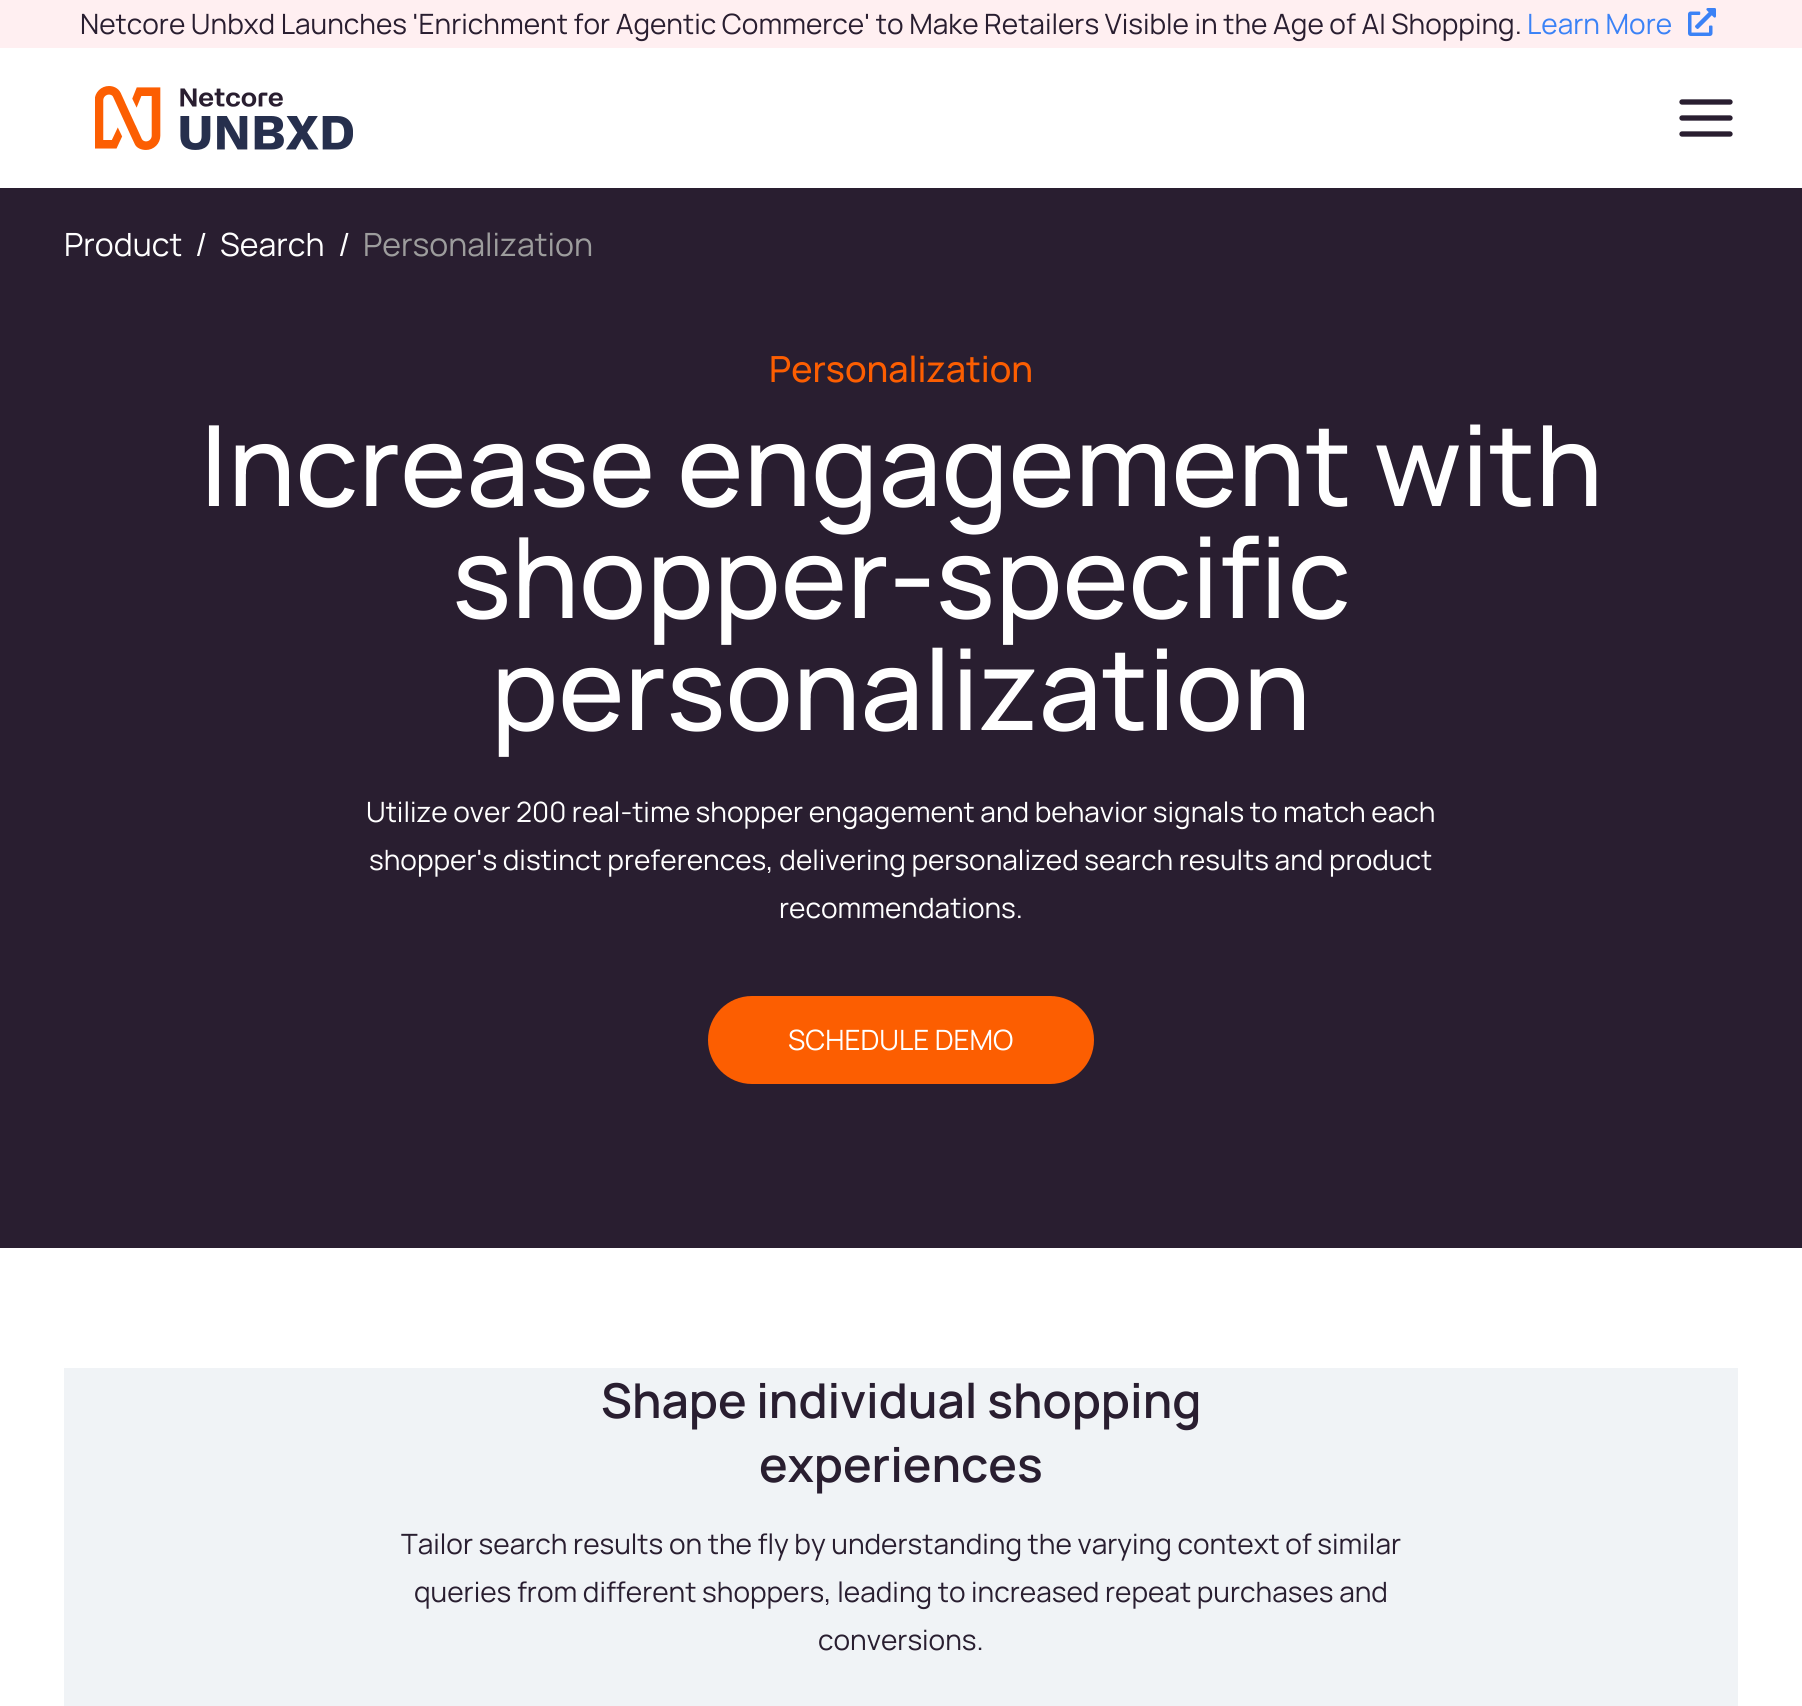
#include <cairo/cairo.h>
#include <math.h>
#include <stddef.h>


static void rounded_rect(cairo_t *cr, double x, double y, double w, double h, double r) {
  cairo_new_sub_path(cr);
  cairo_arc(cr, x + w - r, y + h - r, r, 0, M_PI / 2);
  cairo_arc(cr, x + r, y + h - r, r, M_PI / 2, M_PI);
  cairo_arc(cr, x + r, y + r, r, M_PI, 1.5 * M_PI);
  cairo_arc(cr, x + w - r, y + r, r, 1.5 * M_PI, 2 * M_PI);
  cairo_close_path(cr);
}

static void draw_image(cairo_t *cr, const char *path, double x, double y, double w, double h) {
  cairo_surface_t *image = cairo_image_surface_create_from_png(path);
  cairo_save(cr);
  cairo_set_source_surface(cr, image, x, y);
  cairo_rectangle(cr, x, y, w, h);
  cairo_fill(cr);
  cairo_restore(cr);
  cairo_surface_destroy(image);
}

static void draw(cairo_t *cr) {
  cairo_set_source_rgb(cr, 1, 1, 1);
  cairo_paint(cr);
  cairo_set_source_rgb(cr, 1, 239 / 255.0, 241 / 255.0);
  cairo_rectangle(cr, 0, 0, 1802, 48);
  cairo_fill(cr);
  draw_image(cr, "images/1.png", 1688, 8, 28, 28);
  draw_image(cr, "images/2.png", 95, 86, 258, 64);
  cairo_new_path(cr);
  cairo_move_to(cr, 1682, 118);
  cairo_line_to(cr, 1730, 118);
  cairo_move_to(cr, 1682, 102);
  cairo_line_to(cr, 1730, 102);
  cairo_move_to(cr, 1682, 134);
  cairo_line_to(cr, 1730, 134);
  cairo_set_source_rgb(cr, 41 / 255.0, 30 / 255.0, 48 / 255.0);
  cairo_set_line_width(cr, 5.3);
  cairo_set_line_cap(cr, CAIRO_LINE_CAP_ROUND);
  cairo_set_line_join(cr, CAIRO_LINE_JOIN_ROUND);
  cairo_stroke(cr);
  cairo_rectangle(cr, 0, 188, 1802, 1060);
  cairo_fill(cr);
  cairo_set_source_rgb(cr, 252 / 255.0, 94 / 255.0, 1 / 255.0);
  rounded_rect(cr, 708, 996, 386, 88, 44);
  cairo_fill(cr);
  cairo_set_source_rgb(cr, 240 / 255.0, 243 / 255.0, 246 / 255.0);
  cairo_rectangle(cr, 64, 1368, 1674, 338);
  cairo_fill(cr);
  cairo_select_font_face(cr, "Manrope", CAIRO_FONT_SLANT_NORMAL, CAIRO_FONT_WEIGHT_NORMAL);
  cairo_set_font_size(cr, 28);
  cairo_set_source_rgb(cr, 41 / 255.0, 30 / 255.0, 48 / 255.0);
  cairo_move_to(cr, 80, 34);
  cairo_show_text(cr, "Netcore Unbxd Launches 'Enrichment for Agentic Commerce' to Make Retailers Visible in the Age of AI Shopping.");
  cairo_set_source_rgb(cr, 59 / 255.0, 130 / 255.0, 246 / 255.0);
  cairo_move_to(cr, 1527, 34);
  cairo_show_text(cr, "Learn More");
  cairo_set_font_size(cr, 32);
  cairo_set_source_rgb(cr, 1, 1, 1);
  cairo_move_to(cr, 64, 256);
  cairo_show_text(cr, "Product");
  cairo_move_to(cr, 195, 256);
  cairo_show_text(cr, "/");
  cairo_move_to(cr, 220, 256);
  cairo_show_text(cr, "Search");
  cairo_move_to(cr, 338, 256);
  cairo_show_text(cr, "/");
  cairo_set_source_rgb(cr, 157 / 255.0, 157 / 255.0, 157 / 255.0);
  cairo_move_to(cr, 363, 256);
  cairo_show_text(cr, "Personalization");
  cairo_select_font_face(cr, "Manrope Medium", CAIRO_FONT_SLANT_NORMAL, CAIRO_FONT_WEIGHT_NORMAL);
  cairo_set_font_size(cr, 36);
  cairo_set_source_rgb(cr, 252 / 255.0, 94 / 255.0, 1 / 255.0);
  cairo_move_to(cr, 769, 382);
  cairo_show_text(cr, "Personalization");
  cairo_set_font_size(cr, 112);
  cairo_set_source_rgb(cr, 1, 1, 1);
  cairo_move_to(cr, 200, 506);
  cairo_show_text(cr, "Increase engagement with");
  cairo_move_to(cr, 452, 618);
  cairo_show_text(cr, "shopper-specific");
  cairo_move_to(cr, 491, 730);
  cairo_show_text(cr, "personalization");
  cairo_select_font_face(cr, "Manrope", CAIRO_FONT_SLANT_NORMAL, CAIRO_FONT_WEIGHT_NORMAL);
  cairo_set_font_size(cr, 28);
  cairo_move_to(cr, 366, 822);
  cairo_show_text(cr, "Utilize over 200 real-time shopper engagement and behavior signals to match each");
  cairo_move_to(cr, 369, 870);
  cairo_show_text(cr, "shopper's distinct preferences, delivering personalized search results and product");
  cairo_move_to(cr, 779, 918);
  cairo_show_text(cr, "recommendations.");
  cairo_move_to(cr, 788, 1050);
  cairo_show_text(cr, "SCHEDULE DEMO");
  cairo_select_font_face(cr, "Manrope SemiBold", CAIRO_FONT_SLANT_NORMAL, CAIRO_FONT_WEIGHT_NORMAL);
  cairo_set_font_size(cr, 48);
  cairo_set_source_rgb(cr, 41 / 255.0, 30 / 255.0, 48 / 255.0);
  cairo_move_to(cr, 601, 1418);
  cairo_show_text(cr, "Shape individual shopping");
  cairo_move_to(cr, 759, 1482);
  cairo_show_text(cr, "experiences");
  cairo_select_font_face(cr, "Manrope", CAIRO_FONT_SLANT_NORMAL, CAIRO_FONT_WEIGHT_NORMAL);
  cairo_set_font_size(cr, 28);
  cairo_move_to(cr, 401, 1554);
  cairo_show_text(cr, "Tailor search results on the fly by understanding the varying context of similar");
  cairo_move_to(cr, 414, 1602);
  cairo_show_text(cr, "queries from different shoppers, leading to increased repeat purchases and");
  cairo_move_to(cr, 818, 1650);
  cairo_show_text(cr, "conversions.");
}

int main(void) {
  cairo_surface_t *surface = cairo_image_surface_create(CAIRO_FORMAT_RGB24, 1802, 1706);
  cairo_t *cr = cairo_create(surface);
  cairo_font_options_t *options = cairo_font_options_create();
  cairo_font_options_set_hint_metrics(options, CAIRO_HINT_METRICS_OFF);
  cairo_font_options_set_hint_style(options, CAIRO_HINT_STYLE_NONE);
  cairo_set_font_options(cr, options);
  cairo_set_miter_limit(cr, 4);
  draw(cr);
  cairo_surface_write_to_png(surface, "out.png");
  cairo_font_options_destroy(options);
  cairo_destroy(cr);
  cairo_surface_destroy(surface);
  return 0;
}
